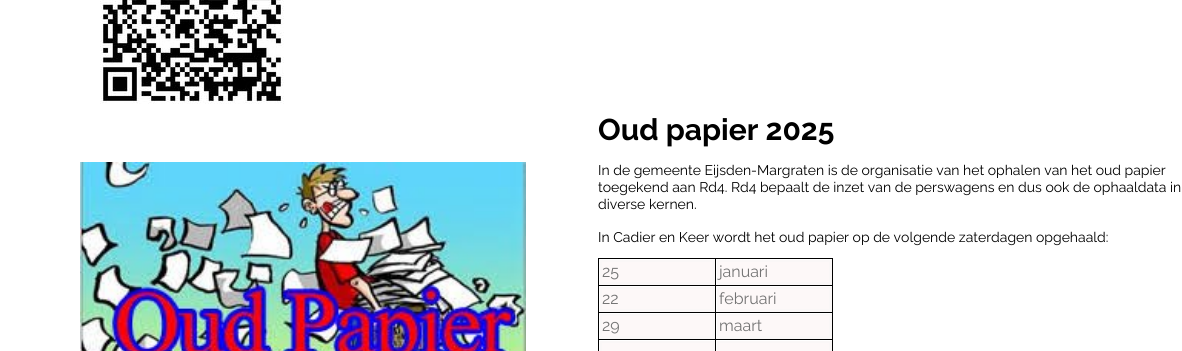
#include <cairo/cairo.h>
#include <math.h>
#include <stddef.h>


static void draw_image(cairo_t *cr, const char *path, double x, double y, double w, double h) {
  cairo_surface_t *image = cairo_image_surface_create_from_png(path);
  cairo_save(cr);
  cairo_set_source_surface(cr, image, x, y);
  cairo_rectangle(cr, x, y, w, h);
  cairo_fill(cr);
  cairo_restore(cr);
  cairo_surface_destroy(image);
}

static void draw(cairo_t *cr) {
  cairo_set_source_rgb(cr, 1, 1, 1);
  cairo_paint(cr);
  draw_image(cr, "images/1.png", 100, 0, 184, 104);
  draw_image(cr, "images/2.png", 80, 162, 446, 189);
  cairo_set_source_rgb(cr, 250 / 255.0, 247 / 255.0, 247 / 255.0);
  cairo_rectangle(cr, 600, 260, 115, 25);
  cairo_fill(cr);
  cairo_set_source_rgb(cr, 0, 0, 0);
  cairo_rectangle(cr, 715, 258, 118, 1);
  cairo_fill(cr);
  cairo_rectangle(cr, 715, 285, 118, 1);
  cairo_fill(cr);
  cairo_rectangle(cr, 715, 312, 118, 1);
  cairo_fill(cr);
  cairo_rectangle(cr, 715, 339, 118, 1);
  cairo_fill(cr);
  cairo_rectangle(cr, 715, 339, 1, 12);
  cairo_fill(cr);
  cairo_rectangle(cr, 598, 339, 118, 1);
  cairo_fill(cr);
  cairo_rectangle(cr, 715, 312, 1, 28);
  cairo_fill(cr);
  cairo_rectangle(cr, 598, 312, 118, 1);
  cairo_fill(cr);
  cairo_rectangle(cr, 715, 285, 1, 28);
  cairo_fill(cr);
  cairo_rectangle(cr, 598, 285, 118, 1);
  cairo_fill(cr);
  cairo_rectangle(cr, 715, 258, 1, 28);
  cairo_fill(cr);
  cairo_rectangle(cr, 598, 258, 118, 1);
  cairo_fill(cr);
  cairo_rectangle(cr, 598, 339, 1, 12);
  cairo_fill(cr);
  cairo_rectangle(cr, 598, 312, 1, 28);
  cairo_fill(cr);
  cairo_rectangle(cr, 598, 285, 1, 28);
  cairo_fill(cr);
  cairo_rectangle(cr, 598, 258, 1, 28);
  cairo_fill(cr);
  cairo_set_source_rgb(cr, 253 / 255.0, 248 / 255.0, 248 / 255.0);
  cairo_rectangle(cr, 602, 262, 110, 20);
  cairo_fill(cr);
  cairo_set_source_rgb(cr, 250 / 255.0, 247 / 255.0, 247 / 255.0);
  cairo_rectangle(cr, 717, 260, 115, 25);
  cairo_fill(cr);
  cairo_set_source_rgb(cr, 0, 0, 0);
  cairo_rectangle(cr, 832, 339, 1, 12);
  cairo_fill(cr);
  cairo_rectangle(cr, 832, 312, 1, 28);
  cairo_fill(cr);
  cairo_rectangle(cr, 832, 285, 1, 28);
  cairo_fill(cr);
  cairo_rectangle(cr, 832, 258, 1, 28);
  cairo_fill(cr);
  cairo_set_source_rgb(cr, 253 / 255.0, 248 / 255.0, 248 / 255.0);
  cairo_rectangle(cr, 719, 262, 110, 20);
  cairo_fill(cr);
  cairo_set_source_rgb(cr, 250 / 255.0, 247 / 255.0, 247 / 255.0);
  cairo_rectangle(cr, 600, 287, 115, 25);
  cairo_fill(cr);
  cairo_set_source_rgb(cr, 253 / 255.0, 248 / 255.0, 248 / 255.0);
  cairo_rectangle(cr, 602, 289, 110, 20);
  cairo_fill(cr);
  cairo_set_source_rgb(cr, 250 / 255.0, 247 / 255.0, 247 / 255.0);
  cairo_rectangle(cr, 717, 287, 115, 25);
  cairo_fill(cr);
  cairo_set_source_rgb(cr, 253 / 255.0, 248 / 255.0, 248 / 255.0);
  cairo_rectangle(cr, 719, 289, 110, 20);
  cairo_fill(cr);
  cairo_set_source_rgb(cr, 250 / 255.0, 247 / 255.0, 247 / 255.0);
  cairo_rectangle(cr, 600, 314, 115, 25);
  cairo_fill(cr);
  cairo_set_source_rgb(cr, 253 / 255.0, 248 / 255.0, 248 / 255.0);
  cairo_rectangle(cr, 602, 316, 110, 20);
  cairo_fill(cr);
  cairo_set_source_rgb(cr, 250 / 255.0, 247 / 255.0, 247 / 255.0);
  cairo_rectangle(cr, 717, 314, 115, 25);
  cairo_fill(cr);
  cairo_set_source_rgb(cr, 253 / 255.0, 248 / 255.0, 248 / 255.0);
  cairo_rectangle(cr, 719, 316, 110, 20);
  cairo_fill(cr);
  cairo_set_source_rgb(cr, 250 / 255.0, 247 / 255.0, 247 / 255.0);
  cairo_rectangle(cr, 600, 341, 115, 10);
  cairo_fill(cr);
  cairo_set_source_rgb(cr, 253 / 255.0, 248 / 255.0, 248 / 255.0);
  cairo_rectangle(cr, 602, 343, 110, 8);
  cairo_fill(cr);
  cairo_set_source_rgb(cr, 250 / 255.0, 247 / 255.0, 247 / 255.0);
  cairo_rectangle(cr, 717, 341, 115, 10);
  cairo_fill(cr);
  cairo_set_source_rgb(cr, 253 / 255.0, 248 / 255.0, 248 / 255.0);
  cairo_rectangle(cr, 719, 343, 110, 8);
  cairo_fill(cr);
  cairo_select_font_face(cr, "Raleway", CAIRO_FONT_SLANT_NORMAL, CAIRO_FONT_WEIGHT_BOLD);
  cairo_set_font_size(cr, 30);
  cairo_set_source_rgb(cr, 0, 0, 0);
  cairo_move_to(cr, 598, 140);
  cairo_show_text(cr, "Oud papier 2025");
  cairo_select_font_face(cr, "Raleway", CAIRO_FONT_SLANT_NORMAL, CAIRO_FONT_WEIGHT_NORMAL);
  cairo_set_font_size(cr, 14);
  cairo_move_to(cr, 598, 175);
  cairo_show_text(cr, "In de gemeente Eijsden-Margraten is de organisatie van het ophalen van het oud papier");
  cairo_move_to(cr, 598, 192);
  cairo_show_text(cr, "toegekend aan Rd4. Rd4 bepaalt de inzet van de perswagens en dus ook de ophaaldata in");
  cairo_move_to(cr, 598, 209);
  cairo_show_text(cr, "diverse kernen.");
  cairo_move_to(cr, 598, 242);
  cairo_show_text(cr, "In Cadier en Keer wordt het oud papier op de volgende zaterdagen opgehaald:");
  cairo_set_font_size(cr, 16);
  cairo_set_source_rgb(cr, 115 / 255.0, 115 / 255.0, 115 / 255.0);
  cairo_move_to(cr, 602, 277);
  cairo_show_text(cr, "25");
  cairo_move_to(cr, 719, 277);
  cairo_show_text(cr, "januari");
  cairo_move_to(cr, 602, 304);
  cairo_show_text(cr, "22");
  cairo_move_to(cr, 719, 304);
  cairo_show_text(cr, "februari");
  cairo_move_to(cr, 602, 331);
  cairo_show_text(cr, "29");
  cairo_move_to(cr, 719, 331);
  cairo_show_text(cr, "maart");
}

int main(void) {
  cairo_surface_t *surface = cairo_image_surface_create(CAIRO_FORMAT_RGB24, 1182, 351);
  cairo_t *cr = cairo_create(surface);
  cairo_font_options_t *options = cairo_font_options_create();
  cairo_font_options_set_hint_metrics(options, CAIRO_HINT_METRICS_OFF);
  cairo_font_options_set_hint_style(options, CAIRO_HINT_STYLE_NONE);
  cairo_set_font_options(cr, options);
  cairo_set_miter_limit(cr, 4);
  draw(cr);
  cairo_surface_write_to_png(surface, "out.png");
  cairo_font_options_destroy(options);
  cairo_destroy(cr);
  cairo_surface_destroy(surface);
  return 0;
}
